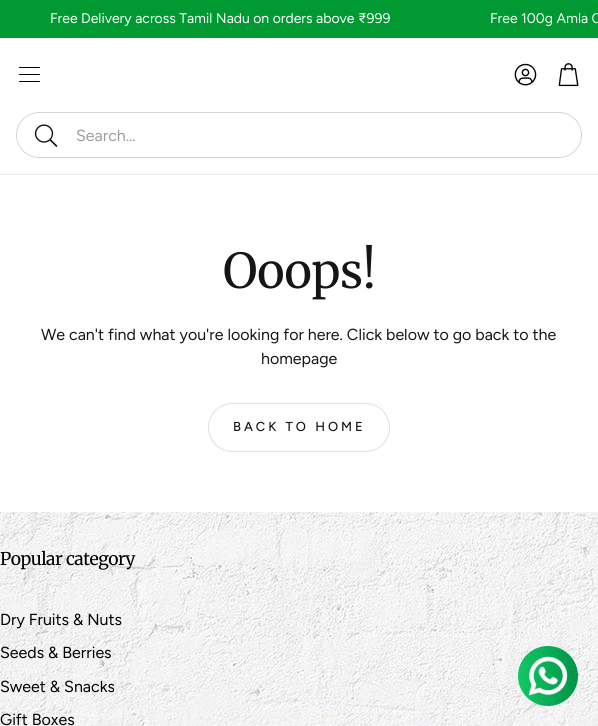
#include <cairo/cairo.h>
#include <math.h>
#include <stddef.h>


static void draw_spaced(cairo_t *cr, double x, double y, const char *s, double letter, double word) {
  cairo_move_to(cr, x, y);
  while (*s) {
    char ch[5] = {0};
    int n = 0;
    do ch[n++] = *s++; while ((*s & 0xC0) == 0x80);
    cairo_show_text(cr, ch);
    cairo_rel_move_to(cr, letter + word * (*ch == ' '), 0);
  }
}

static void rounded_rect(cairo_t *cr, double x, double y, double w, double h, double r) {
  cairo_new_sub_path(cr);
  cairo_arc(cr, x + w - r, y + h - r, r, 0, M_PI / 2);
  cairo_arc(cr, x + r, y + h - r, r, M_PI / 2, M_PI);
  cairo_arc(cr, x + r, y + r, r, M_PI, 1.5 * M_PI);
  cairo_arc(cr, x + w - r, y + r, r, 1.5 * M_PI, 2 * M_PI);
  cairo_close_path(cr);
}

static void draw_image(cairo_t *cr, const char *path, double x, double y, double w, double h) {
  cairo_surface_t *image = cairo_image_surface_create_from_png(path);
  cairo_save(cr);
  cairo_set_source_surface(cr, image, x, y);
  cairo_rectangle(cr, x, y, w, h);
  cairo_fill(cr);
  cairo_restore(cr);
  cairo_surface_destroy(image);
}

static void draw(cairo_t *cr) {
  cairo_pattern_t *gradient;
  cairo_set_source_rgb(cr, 1, 1, 1);
  cairo_paint(cr);
  cairo_set_source_rgb(cr, 0, 153 / 255.0, 50 / 255.0);
  cairo_rectangle(cr, 0, 0, 598, 38);
  cairo_fill(cr);
  cairo_set_source_rgb(cr, 231 / 255.0, 231 / 255.0, 231 / 255.0);
  cairo_rectangle(cr, 0, 174, 598, 1);
  cairo_fill(cr);
  cairo_set_source_rgb(cr, 0, 0, 0);
  rounded_rect(cr, 19, 67, 21, 1, 0.5);
  cairo_fill(cr);
  rounded_rect(cr, 19, 74, 21, 1, 0.5);
  cairo_fill(cr);
  rounded_rect(cr, 19, 81, 21, 1, 0.5);
  cairo_fill(cr);
  draw_image(cr, "images/1.png", 514, 63, 23, 23);
  draw_image(cr, "images/2.png", 558, 63, 21, 24);
  rounded_rect(cr, 16.5, 112.5, 565, 45, 22.5);
  cairo_set_source_rgb(cr, 214 / 255.0, 214 / 255.0, 214 / 255.0);
  cairo_set_line_width(cr, 1);
  cairo_stroke(cr);
  draw_image(cr, "images/3.png", 34, 124, 24, 23);
  rounded_rect(cr, 208.5, 403.5, 181, 48, 24);
  cairo_set_source_rgb(cr, 223 / 255.0, 223 / 255.0, 223 / 255.0);
  cairo_stroke(cr);
  draw_image(cr, "images/4.png", 0, 512, 598, 214);
  gradient = cairo_pattern_create_linear(518, 676, 578, 676);
  cairo_pattern_add_color_stop_rgba(gradient, 0.01, 18 / 255.0, 198 / 255.0, 101 / 255.0, 1);
  cairo_pattern_add_color_stop_rgba(gradient, 1, 0, 148 / 255.0, 70 / 255.0, 1);
  cairo_set_source(cr, gradient);
  cairo_pattern_destroy(gradient);
  cairo_arc(cr, 548, 676, 30, 0, 2 * M_PI);
  cairo_fill(cr);
  draw_image(cr, "images/5.png", 528, 656, 40, 40);
  cairo_select_font_face(cr, "Figtree", CAIRO_FONT_SLANT_NORMAL, CAIRO_FONT_WEIGHT_NORMAL);
  cairo_set_font_size(cr, 14);
  cairo_set_source_rgb(cr, 1, 1, 1);
  cairo_move_to(cr, 50, 23);
  cairo_show_text(cr, "Free Delivery across Tamil Nadu on orders above ₹999");
  cairo_move_to(cr, 490, 23);
  cairo_show_text(cr, "Free 100g Amla C");
  cairo_set_font_size(cr, 16);
  cairo_set_source_rgb(cr, 156 / 255.0, 156 / 255.0, 156 / 255.0);
  cairo_move_to(cr, 76, 141);
  cairo_show_text(cr, "Search...");
  cairo_select_font_face(cr, "Merriweather", CAIRO_FONT_SLANT_NORMAL, CAIRO_FONT_WEIGHT_NORMAL);
  cairo_set_font_size(cr, 48);
  cairo_set_source_rgb(cr, 21 / 255.0, 21 / 255.0, 21 / 255.0);
  cairo_move_to(cr, 223, 288);
  cairo_show_text(cr, "Ooops!");
  cairo_select_font_face(cr, "Figtree", CAIRO_FONT_SLANT_NORMAL, CAIRO_FONT_WEIGHT_NORMAL);
  cairo_set_font_size(cr, 16);
  cairo_move_to(cr, 41, 340);
  cairo_show_text(cr, "We can't find what you're looking for here. Click below to go back to the");
  cairo_move_to(cr, 261, 364);
  cairo_show_text(cr, "homepage");
  cairo_select_font_face(cr, "Figtree Medium", CAIRO_FONT_SLANT_NORMAL, CAIRO_FONT_WEIGHT_NORMAL);
  cairo_set_font_size(cr, 13);
  draw_spaced(cr, 233, 431, "BACK TO HOME", 3, 0);
  cairo_select_font_face(cr, "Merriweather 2", CAIRO_FONT_SLANT_NORMAL, CAIRO_FONT_WEIGHT_NORMAL);
  cairo_set_font_size(cr, 17.5);
  cairo_set_source_rgb(cr, 0, 0, 0);
  draw_spaced(cr, 0, 565, "Popular category", -0.5, 0);
  cairo_select_font_face(cr, "Figtree", CAIRO_FONT_SLANT_NORMAL, CAIRO_FONT_WEIGHT_NORMAL);
  cairo_set_font_size(cr, 16);
  cairo_move_to(cr, 0, 625);
  cairo_show_text(cr, "Dry Fruits & Nuts");
  cairo_move_to(cr, 0, 658);
  cairo_show_text(cr, "Seeds & Berries");
  cairo_move_to(cr, 0, 692);
  cairo_show_text(cr, "Sweet & Snacks");
  cairo_move_to(cr, 0, 725);
  cairo_show_text(cr, "Gift Boxes");
}

int main(void) {
  cairo_surface_t *surface = cairo_image_surface_create(CAIRO_FORMAT_RGB24, 598, 726);
  cairo_t *cr = cairo_create(surface);
  cairo_font_options_t *options = cairo_font_options_create();
  cairo_font_options_set_hint_metrics(options, CAIRO_HINT_METRICS_OFF);
  cairo_font_options_set_hint_style(options, CAIRO_HINT_STYLE_NONE);
  cairo_set_font_options(cr, options);
  cairo_set_miter_limit(cr, 4);
  draw(cr);
  cairo_surface_write_to_png(surface, "out.png");
  cairo_font_options_destroy(options);
  cairo_destroy(cr);
  cairo_surface_destroy(surface);
  return 0;
}
